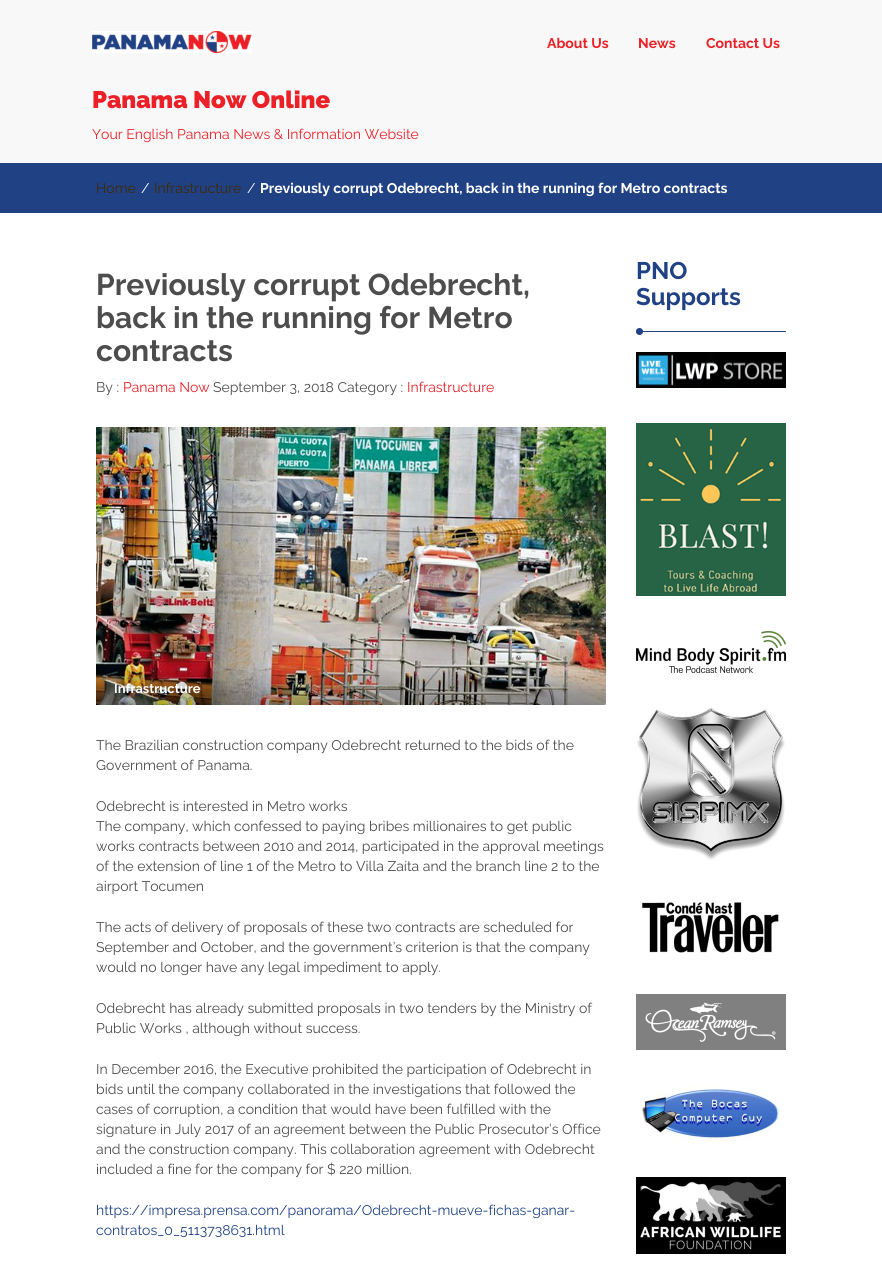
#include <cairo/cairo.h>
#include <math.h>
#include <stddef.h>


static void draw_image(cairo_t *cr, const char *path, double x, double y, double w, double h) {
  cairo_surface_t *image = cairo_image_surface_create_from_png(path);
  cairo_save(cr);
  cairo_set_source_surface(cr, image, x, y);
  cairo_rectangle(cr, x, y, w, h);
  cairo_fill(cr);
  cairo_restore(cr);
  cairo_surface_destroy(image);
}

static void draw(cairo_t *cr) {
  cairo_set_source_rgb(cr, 1, 1, 1);
  cairo_paint(cr);
  cairo_set_source_rgb(cr, 248 / 255.0, 248 / 255.0, 248 / 255.0);
  cairo_rectangle(cr, 0, 0, 882, 163);
  cairo_fill(cr);
  draw_image(cr, "images/1.png", 92, 31, 160, 22);
  cairo_set_source_rgb(cr, 32 / 255.0, 66 / 255.0, 133 / 255.0);
  cairo_rectangle(cr, 0, 163, 882, 50);
  cairo_fill(cr);
  draw_image(cr, "images/2.png", 96, 427, 510, 278);
  cairo_rectangle(cr, 636, 331, 150, 1);
  cairo_fill(cr);
  cairo_arc(cr, 639.5, 331.5, 3.5, 0, 2 * M_PI);
  cairo_fill(cr);
  draw_image(cr, "images/3.png", 636, 352, 150, 36);
  draw_image(cr, "images/4.png", 636, 423, 150, 173);
  draw_image(cr, "images/5.png", 636, 631, 150, 42);
  draw_image(cr, "images/6.png", 637, 708, 148, 152);
  draw_image(cr, "images/7.png", 641, 900, 138, 53);
  draw_image(cr, "images/8.png", 636, 994, 150, 56);
  draw_image(cr, "images/9.png", 642, 1086, 138, 55);
  draw_image(cr, "images/10.png", 636, 1177, 150, 77);
  cairo_select_font_face(cr, "Raleway", CAIRO_FONT_SLANT_NORMAL, CAIRO_FONT_WEIGHT_BOLD);
  cairo_set_font_size(cr, 14);
  cairo_set_source_rgb(cr, 236 / 255.0, 32 / 255.0, 39 / 255.0);
  cairo_move_to(cr, 547, 48);
  cairo_show_text(cr, "About Us");
  cairo_move_to(cr, 638, 48);
  cairo_show_text(cr, "News");
  cairo_move_to(cr, 706, 48);
  cairo_show_text(cr, "Contact Us");
  cairo_select_font_face(cr, "Raleway Black", CAIRO_FONT_SLANT_NORMAL, CAIRO_FONT_WEIGHT_NORMAL);
  cairo_set_font_size(cr, 24);
  cairo_move_to(cr, 92, 108);
  cairo_show_text(cr, "Panama Now Online");
  cairo_select_font_face(cr, "Raleway", CAIRO_FONT_SLANT_NORMAL, CAIRO_FONT_WEIGHT_NORMAL);
  cairo_set_font_size(cr, 14);
  cairo_move_to(cr, 92, 139);
  cairo_show_text(cr, "Your English Panama News & Information Website");
  cairo_set_source_rgb(cr, 64 / 255.0, 40 / 255.0, 4 / 255.0);
  cairo_move_to(cr, 96, 193);
  cairo_show_text(cr, "Home");
  cairo_set_source_rgb(cr, 1, 1, 1);
  cairo_move_to(cr, 141, 193);
  cairo_show_text(cr, "/");
  cairo_set_source_rgb(cr, 64 / 255.0, 40 / 255.0, 4 / 255.0);
  cairo_move_to(cr, 154, 193);
  cairo_show_text(cr, "Infrastructure");
  cairo_set_source_rgb(cr, 1, 1, 1);
  cairo_move_to(cr, 247, 193);
  cairo_show_text(cr, "/");
  cairo_select_font_face(cr, "Raleway", CAIRO_FONT_SLANT_NORMAL, CAIRO_FONT_WEIGHT_BOLD);
  cairo_move_to(cr, 260, 193);
  cairo_show_text(cr, "Previously corrupt Odebrecht, back in the running for Metro contracts");
  cairo_set_font_size(cr, 30);
  cairo_set_source_rgb(cr, 77 / 255.0, 77 / 255.0, 77 / 255.0);
  cairo_move_to(cr, 96, 295);
  cairo_show_text(cr, "Previously corrupt Odebrecht,");
  cairo_move_to(cr, 96, 328);
  cairo_show_text(cr, "back in the running for Metro");
  cairo_move_to(cr, 96, 361);
  cairo_show_text(cr, "contracts");
  cairo_select_font_face(cr, "Raleway", CAIRO_FONT_SLANT_NORMAL, CAIRO_FONT_WEIGHT_NORMAL);
  cairo_set_font_size(cr, 14);
  cairo_move_to(cr, 96, 392);
  cairo_show_text(cr, "By :");
  cairo_set_source_rgb(cr, 236 / 255.0, 32 / 255.0, 39 / 255.0);
  cairo_move_to(cr, 123, 392);
  cairo_show_text(cr, "Panama Now");
  cairo_set_source_rgb(cr, 77 / 255.0, 77 / 255.0, 77 / 255.0);
  cairo_move_to(cr, 213, 392);
  cairo_show_text(cr, "September 3, 2018 Category :");
  cairo_set_source_rgb(cr, 236 / 255.0, 32 / 255.0, 39 / 255.0);
  cairo_move_to(cr, 407, 392);
  cairo_show_text(cr, "Infrastructure");
  cairo_select_font_face(cr, "Raleway", CAIRO_FONT_SLANT_NORMAL, CAIRO_FONT_WEIGHT_BOLD);
  cairo_set_font_size(cr, 13);
  cairo_set_source_rgb(cr, 1, 1, 1);
  cairo_move_to(cr, 114, 693);
  cairo_show_text(cr, "Infrastructure");
  cairo_select_font_face(cr, "Raleway", CAIRO_FONT_SLANT_NORMAL, CAIRO_FONT_WEIGHT_NORMAL);
  cairo_set_font_size(cr, 14);
  cairo_set_source_rgb(cr, 77 / 255.0, 77 / 255.0, 77 / 255.0);
  cairo_move_to(cr, 96, 750);
  cairo_show_text(cr, "The Brazilian construction company Odebrecht returned to the bids of the");
  cairo_move_to(cr, 96, 770);
  cairo_show_text(cr, "Government of Panama.");
  cairo_move_to(cr, 96, 811);
  cairo_show_text(cr, "Odebrecht is interested in Metro works");
  cairo_move_to(cr, 96, 831);
  cairo_show_text(cr, "The company, which confessed to paying bribes millionaires to get public");
  cairo_move_to(cr, 96, 851);
  cairo_show_text(cr, "works contracts between 2010 and 2014, participated in the approval meetings");
  cairo_move_to(cr, 96, 871);
  cairo_show_text(cr, "of the extension of line 1 of the Metro to Villa Zaíta and the branch line 2 to the");
  cairo_move_to(cr, 96, 891);
  cairo_show_text(cr, "airport Tocumen");
  cairo_move_to(cr, 96, 932);
  cairo_show_text(cr, "The acts of delivery of proposals of these two contracts are scheduled for");
  cairo_move_to(cr, 96, 952);
  cairo_show_text(cr, "September and October, and the government’s criterion is that the company");
  cairo_move_to(cr, 96, 972);
  cairo_show_text(cr, "would no longer have any legal impediment to apply.");
  cairo_move_to(cr, 96, 1013);
  cairo_show_text(cr, "Odebrecht has already submitted proposals in two tenders by the Ministry of");
  cairo_move_to(cr, 96, 1033);
  cairo_show_text(cr, "Public Works , although without success.");
  cairo_move_to(cr, 96, 1074);
  cairo_show_text(cr, "In December 2016, the Executive prohibited the participation of Odebrecht in");
  cairo_move_to(cr, 96, 1094);
  cairo_show_text(cr, "bids until the company collaborated in the investigations that followed the");
  cairo_move_to(cr, 96, 1114);
  cairo_show_text(cr, "cases of corruption, a condition that would have been fulfilled with the");
  cairo_move_to(cr, 96, 1134);
  cairo_show_text(cr, "signature in July 2017 of an agreement between the Public Prosecutor’s Office");
  cairo_move_to(cr, 96, 1154);
  cairo_show_text(cr, "and the construction company. This collaboration agreement with Odebrecht");
  cairo_move_to(cr, 96, 1174);
  cairo_show_text(cr, "included a fine for the company for $ 220 million.");
  cairo_set_source_rgb(cr, 32 / 255.0, 66 / 255.0, 133 / 255.0);
  cairo_move_to(cr, 96, 1215);
  cairo_show_text(cr, "https://impresa.prensa.com/panorama/Odebrecht-mueve-fichas-ganar-");
  cairo_move_to(cr, 96, 1235);
  cairo_show_text(cr, "contratos_0_5113738631.html");
  cairo_select_font_face(cr, "Raleway", CAIRO_FONT_SLANT_NORMAL, CAIRO_FONT_WEIGHT_BOLD);
  cairo_set_font_size(cr, 24);
  cairo_move_to(cr, 636, 279);
  cairo_show_text(cr, "PNO");
  cairo_move_to(cr, 636, 305);
  cairo_show_text(cr, "Supports");
}

int main(void) {
  cairo_surface_t *surface = cairo_image_surface_create(CAIRO_FORMAT_RGB24, 882, 1263);
  cairo_t *cr = cairo_create(surface);
  cairo_font_options_t *options = cairo_font_options_create();
  cairo_font_options_set_hint_metrics(options, CAIRO_HINT_METRICS_OFF);
  cairo_font_options_set_hint_style(options, CAIRO_HINT_STYLE_NONE);
  cairo_set_font_options(cr, options);
  cairo_set_miter_limit(cr, 4);
  draw(cr);
  cairo_surface_write_to_png(surface, "out.png");
  cairo_font_options_destroy(options);
  cairo_destroy(cr);
  cairo_surface_destroy(surface);
  return 0;
}
